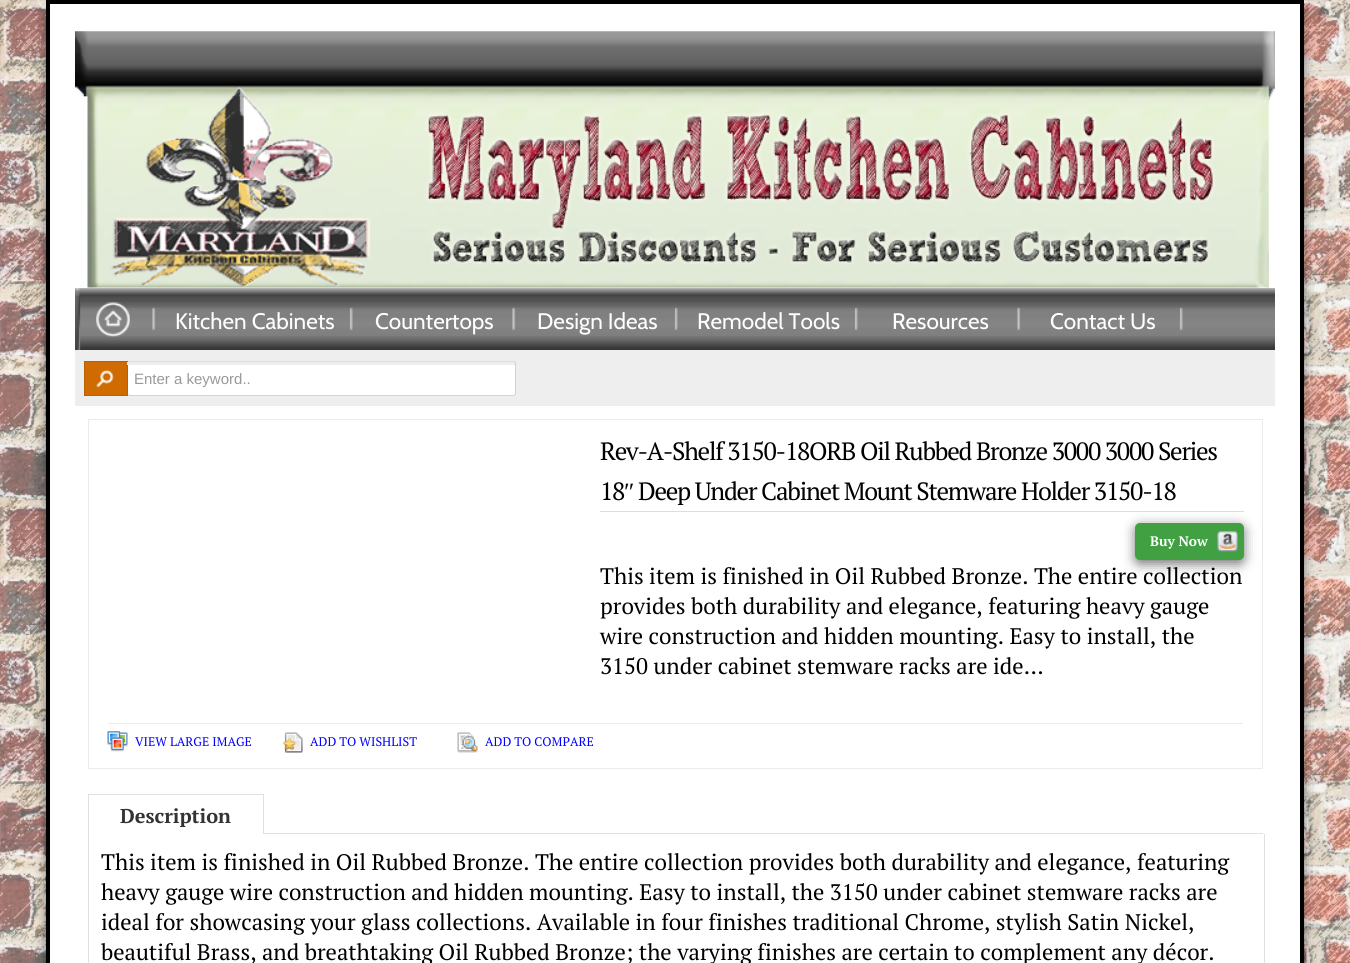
#include <cairo/cairo.h>
#include <math.h>
#include <stddef.h>


static void draw_spaced(cairo_t *cr, double x, double y, const char *s, double letter, double word) {
  cairo_move_to(cr, x, y);
  while (*s) {
    char ch[5] = {0};
    int n = 0;
    do ch[n++] = *s++; while ((*s & 0xC0) == 0x80);
    cairo_show_text(cr, ch);
    cairo_rel_move_to(cr, letter + word * (*ch == ' '), 0);
  }
}

static void rounded_rect(cairo_t *cr, double x, double y, double w, double h, double r) {
  cairo_new_sub_path(cr);
  cairo_arc(cr, x + w - r, y + h - r, r, 0, M_PI / 2);
  cairo_arc(cr, x + r, y + h - r, r, M_PI / 2, M_PI);
  cairo_arc(cr, x + r, y + r, r, M_PI, 1.5 * M_PI);
  cairo_arc(cr, x + w - r, y + r, r, 1.5 * M_PI, 2 * M_PI);
  cairo_close_path(cr);
}

static void draw_shadow(cairo_t *cr, double x, double y, double w, double h, double r, double blur, double alpha) {
  cairo_push_group_with_content(cr, CAIRO_CONTENT_ALPHA);
  cairo_set_operator(cr, CAIRO_OPERATOR_SOURCE);
  for (int i = 15; i >= -15 && fmin(w, h) + blur * i / 3 > 0; i -= 2) {
    double e = blur * i / 6;
    cairo_set_source_rgba(cr, 0, 0, 0, alpha * erfc((i - 1) / 8.5) / 2);
    rounded_rect(cr, x - e, y - e, w + 2 * e, h + 2 * e, fmax(0, fmin(r + e + blur * .6, fmin(w, h) / 2 + e)));
    cairo_fill(cr);
  }
  cairo_pattern_t *soft = cairo_pop_group(cr);
  cairo_mask(cr, soft);
  cairo_pattern_destroy(soft);
}

static void draw_image(cairo_t *cr, const char *path, double x, double y, double w, double h) {
  cairo_surface_t *image = cairo_image_surface_create_from_png(path);
  cairo_save(cr);
  cairo_set_source_surface(cr, image, x, y);
  cairo_rectangle(cr, x, y, w, h);
  cairo_fill(cr);
  cairo_restore(cr);
  cairo_surface_destroy(image);
}

static void draw(cairo_t *cr) {
  cairo_set_source_rgb(cr, 239 / 255.0, 239 / 255.0, 239 / 255.0);
  cairo_paint(cr);
  draw_image(cr, "images/1.png", 0, 0, 1350, 963);
  cairo_set_source_rgb(cr, 0, 0, 0);
  draw_shadow(cr, 46, 13, 1258, 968, 0, 6, 0.5);
  cairo_set_source_rgb(cr, 1, 1, 1);
  cairo_rectangle(cr, 48, 2, 1254, 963);
  cairo_fill_preserve(cr);
  cairo_set_source_rgb(cr, 0, 0, 0);
  cairo_set_line_width(cr, 4);
  cairo_stroke(cr);
  draw_image(cr, "images/2.png", 75, 31, 1200, 257);
  draw_image(cr, "images/3.png", 75, 288, 1200, 62);
  draw_image(cr, "images/4.png", 152, 307, 4, 24);
  draw_image(cr, "images/5.png", 96, 302, 34, 35);
  draw_image(cr, "images/6.png", 349, 307, 4, 24);
  draw_image(cr, "images/4.png", 512, 307, 4, 24);
  draw_image(cr, "images/7.png", 674, 307, 4, 24);
  draw_image(cr, "images/7.png", 854, 307, 4, 24);
  draw_image(cr, "images/4.png", 1017, 307, 4, 24);
  draw_image(cr, "images/6.png", 1179, 307, 4, 24);
  cairo_set_source_rgb(cr, 238 / 255.0, 238 / 255.0, 238 / 255.0);
  cairo_rectangle(cr, 75, 350, 1200, 56);
  cairo_fill(cr);
  cairo_set_source_rgb(cr, 207 / 255.0, 107 / 255.0, 0);
  cairo_rectangle(cr, 85, 362, 42, 33);
  cairo_fill(cr);
  draw_image(cr, "images/8.png", 96, 370, 18, 18);
  cairo_rectangle(cr, 84.5, 361.5, 43, 34);
  cairo_set_source_rgb(cr, 184 / 255.0, 97 / 255.0, 4 / 255.0);
  cairo_set_line_width(cr, 1);
  cairo_stroke(cr);
  cairo_set_source_rgb(cr, 1, 1, 1);
  cairo_new_path(cr);
  cairo_move_to(cr, 130, 362);
  cairo_line_to(cr, 514, 362);
  cairo_curve_to(cr, 514, 362, 515, 363, 515, 364);
  cairo_line_to(cr, 515, 394);
  cairo_curve_to(cr, 515, 394, 514, 395, 514, 395);
  cairo_line_to(cr, 130, 395);
  cairo_curve_to(cr, 129, 395, 128, 394, 128, 394);
  cairo_line_to(cr, 128, 364);
  cairo_curve_to(cr, 128, 363, 129, 362, 130, 362);
  cairo_close_path(cr);
  cairo_fill(cr);
  cairo_set_source_rgb(cr, 237 / 255.0, 238 / 255.0, 239 / 255.0);
  cairo_rectangle(cr, 127, 362, 389, 3);
  cairo_fill(cr);
  cairo_set_source_rgb(cr, 221 / 255.0, 221 / 255.0, 221 / 255.0);
  cairo_new_path(cr);
  cairo_move_to(cr, 130, 362);
  cairo_curve_to(cr, 129, 362, 128, 363, 128, 364);
  cairo_curve_to(cr, 128, 363, 129, 362, 129, 361);
  cairo_line_to(cr, 515, 361);
  cairo_line_to(cr, 516, 362);
  cairo_line_to(cr, 515, 363);
  cairo_line_to(cr, 514, 362);
  cairo_close_path(cr);
  cairo_fill(cr);
  cairo_set_source_rgb(cr, 210 / 255.0, 212 / 255.0, 212 / 255.0);
  cairo_new_path(cr);
  cairo_move_to(cr, 514.5, 394.5);
  cairo_line_to(cr, 515, 394);
  cairo_line_to(cr, 515, 364);
  cairo_line_to(cr, 514.5, 363);
  cairo_line_to(cr, 515.5, 362);
  cairo_curve_to(cr, 516.5, 363.5, 516, 368, 516, 369);
  cairo_line_to(cr, 516, 394);
  cairo_line_to(cr, 515.5, 395.5);
  cairo_close_path(cr);
  cairo_fill(cr);
  cairo_new_path(cr);
  cairo_move_to(cr, 515, 395);
  cairo_line_to(cr, 514, 394);
  cairo_line_to(cr, 514, 395);
  cairo_line_to(cr, 130, 395);
  cairo_line_to(cr, 128, 394);
  cairo_curve_to(cr, 128, 395, 129, 396, 130, 396);
  cairo_line_to(cr, 514, 396);
  cairo_close_path(cr);
  cairo_fill(cr);
  cairo_rectangle(cr, 88.5, 419.5, 1174, 349);
  cairo_set_source_rgb(cr, 237 / 255.0, 235 / 255.0, 229 / 255.0);
  cairo_stroke(cr);
  cairo_set_source_rgb(cr, 221 / 255.0, 221 / 255.0, 221 / 255.0);
  cairo_rectangle(cr, 600, 511, 644, 1);
  cairo_fill(cr);
  cairo_set_source_rgb(cr, 119 / 255.0, 119 / 255.0, 119 / 255.0);
  draw_shadow(cr, 1135, 526, 109, 38, 5, 6, 1);
  cairo_set_source_rgb(cr, 65 / 255.0, 160 / 255.0, 65 / 255.0);
  rounded_rect(cr, 1135, 523, 109, 37, 5);
  cairo_fill(cr);
  draw_image(cr, "images/9.png", 1217, 531, 21, 21);
  cairo_set_source_rgb(cr, 237 / 255.0, 235 / 255.0, 229 / 255.0);
  cairo_rectangle(cr, 108, 723, 1135, 1);
  cairo_fill(cr);
  draw_image(cr, "images/10.png", 107, 731, 21, 21);
  draw_image(cr, "images/11.png", 282, 732, 21, 21);
  draw_image(cr, "images/12.png", 457, 732, 21, 21);
  cairo_set_source_rgb(cr, 224 / 255.0, 224 / 255.0, 224 / 255.0);
  cairo_rectangle(cr, 264, 833, 999, 1);
  cairo_fill(cr);
  cairo_rectangle(cr, 88, 794, 176, 1);
  cairo_fill(cr);
  cairo_set_fill_rule(cr, CAIRO_FILL_RULE_EVEN_ODD);
  cairo_new_path(cr);
  cairo_move_to(cr, 88, 834);
  cairo_line_to(cr, 1265, 834);
  cairo_line_to(cr, 1265, 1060);
  cairo_curve_to(cr, 1265, 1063, 1263, 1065, 1260, 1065);
  cairo_line_to(cr, 92, 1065);
  cairo_curve_to(cr, 90, 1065, 88, 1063, 88, 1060);
  cairo_close_path(cr);
  cairo_move_to(cr, 89, 834);
  cairo_line_to(cr, 1264, 834);
  cairo_line_to(cr, 1264, 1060);
  cairo_curve_to(cr, 1264, 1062, 1262, 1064, 1260, 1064);
  cairo_line_to(cr, 92, 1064);
  cairo_curve_to(cr, 90, 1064, 89, 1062, 89, 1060);
  cairo_close_path(cr);
  cairo_fill(cr);
  cairo_rectangle(cr, 263, 794, 1, 41);
  cairo_fill(cr);
  cairo_set_source_rgb(cr, 1, 1, 1);
  cairo_rectangle(cr, 88, 834, 176, 1);
  cairo_fill(cr);
  cairo_set_source_rgb(cr, 224 / 255.0, 224 / 255.0, 224 / 255.0);
  cairo_rectangle(cr, 88, 794, 1, 41);
  cairo_fill(cr);
  cairo_select_font_face(cr, "Cabin", CAIRO_FONT_SLANT_NORMAL, CAIRO_FONT_WEIGHT_NORMAL);
  cairo_set_font_size(cr, 22.5);
  cairo_set_source_rgb(cr, 1, 1, 1);
  cairo_move_to(cr, 175, 329);
  cairo_show_text(cr, "Kitchen Cabinets");
  cairo_move_to(cr, 375, 329);
  cairo_show_text(cr, "Countertops");
  cairo_move_to(cr, 537, 329);
  cairo_show_text(cr, "Design Ideas");
  cairo_move_to(cr, 697, 329);
  cairo_show_text(cr, "Remodel Tools");
  cairo_move_to(cr, 892, 329);
  cairo_show_text(cr, "Resources");
  cairo_move_to(cr, 1050, 329);
  cairo_show_text(cr, "Contact Us");
  cairo_select_font_face(cr, "Liberation Sans", CAIRO_FONT_SLANT_NORMAL, CAIRO_FONT_WEIGHT_NORMAL);
  cairo_set_font_size(cr, 15);
  cairo_set_source_rgb(cr, 153 / 255.0, 153 / 255.0, 153 / 255.0);
  cairo_move_to(cr, 134, 384);
  cairo_show_text(cr, "Enter a keyword..");
  cairo_select_font_face(cr, "PT Serif", CAIRO_FONT_SLANT_NORMAL, CAIRO_FONT_WEIGHT_NORMAL);
  cairo_set_font_size(cr, 25);
  cairo_set_source_rgb(cr, 0, 0, 0);
  draw_spaced(cr, 600, 460, "Rev-A-Shelf 3150-18ORB Oil Rubbed Bronze 3000 3000 Series", -1.25, 0);
  draw_spaced(cr, 600, 500, "18", -1.25, 0);
  cairo_select_font_face(cr, "Liberation Serif", CAIRO_FONT_SLANT_NORMAL, CAIRO_FONT_WEIGHT_NORMAL);
  draw_spaced(cr, 624, 500, "″", -1.25, 0);
  cairo_select_font_face(cr, "PT Serif", CAIRO_FONT_SLANT_NORMAL, CAIRO_FONT_WEIGHT_NORMAL);
  draw_spaced(cr, 638, 500, "Deep Under Cabinet Mount Stemware Holder 3150-18", -1.25, 0);
  cairo_select_font_face(cr, "PT Serif", CAIRO_FONT_SLANT_NORMAL, CAIRO_FONT_WEIGHT_BOLD);
  cairo_set_font_size(cr, 13.75);
  cairo_set_source_rgb(cr, 1, 1, 1);
  cairo_move_to(cr, 1150, 546);
  cairo_show_text(cr, "Buy Now");
  cairo_select_font_face(cr, "PT Serif", CAIRO_FONT_SLANT_NORMAL, CAIRO_FONT_WEIGHT_NORMAL);
  cairo_set_font_size(cr, 22.5);
  cairo_set_source_rgb(cr, 0, 0, 0);
  cairo_move_to(cr, 600, 584);
  cairo_show_text(cr, "This item is finished in Oil Rubbed Bronze. The entire collection");
  cairo_move_to(cr, 600, 614);
  cairo_show_text(cr, "provides both durability and elegance, featuring heavy gauge");
  cairo_move_to(cr, 600, 644);
  cairo_show_text(cr, "wire construction and hidden mounting. Easy to install, the");
  cairo_move_to(cr, 600, 674);
  cairo_show_text(cr, "3150 under cabinet stemware racks are ide…");
  cairo_set_font_size(cr, 12.5);
  cairo_set_source_rgb(cr, 0, 0, 1);
  cairo_move_to(cr, 135, 746);
  cairo_show_text(cr, "VIEW LARGE IMAGE");
  cairo_move_to(cr, 310, 746);
  cairo_show_text(cr, "ADD TO WISHLIST");
  cairo_move_to(cr, 485, 746);
  cairo_show_text(cr, "ADD TO COMPARE");
  cairo_select_font_face(cr, "PT Serif", CAIRO_FONT_SLANT_NORMAL, CAIRO_FONT_WEIGHT_BOLD);
  cairo_set_font_size(cr, 20);
  cairo_set_source_rgb(cr, 51 / 255.0, 51 / 255.0, 51 / 255.0);
  cairo_move_to(cr, 120, 823);
  cairo_show_text(cr, "Description");
  cairo_select_font_face(cr, "PT Serif", CAIRO_FONT_SLANT_NORMAL, CAIRO_FONT_WEIGHT_NORMAL);
  cairo_set_font_size(cr, 22.5);
  cairo_set_source_rgb(cr, 0, 0, 0);
  cairo_move_to(cr, 101, 870);
  cairo_show_text(cr, "This item is finished in Oil Rubbed Bronze. The entire collection provides both durability and elegance, featuring");
  cairo_move_to(cr, 101, 900);
  cairo_show_text(cr, "heavy gauge wire construction and hidden mounting. Easy to install, the 3150 under cabinet stemware racks are");
  cairo_move_to(cr, 101, 930);
  cairo_show_text(cr, "ideal for showcasing your glass collections. Available in four finishes traditional Chrome, stylish Satin Nickel,");
  cairo_move_to(cr, 101, 960);
  cairo_show_text(cr, "beautiful Brass, and breathtaking Oil Rubbed Bronze; the varying finishes are certain to complement any décor.");
}

int main(void) {
  cairo_surface_t *surface = cairo_image_surface_create(CAIRO_FORMAT_RGB24, 1350, 963);
  cairo_t *cr = cairo_create(surface);
  cairo_font_options_t *options = cairo_font_options_create();
  cairo_font_options_set_hint_metrics(options, CAIRO_HINT_METRICS_OFF);
  cairo_font_options_set_hint_style(options, CAIRO_HINT_STYLE_NONE);
  cairo_set_font_options(cr, options);
  cairo_set_miter_limit(cr, 4);
  draw(cr);
  cairo_surface_write_to_png(surface, "out.png");
  cairo_font_options_destroy(options);
  cairo_destroy(cr);
  cairo_surface_destroy(surface);
  return 0;
}
